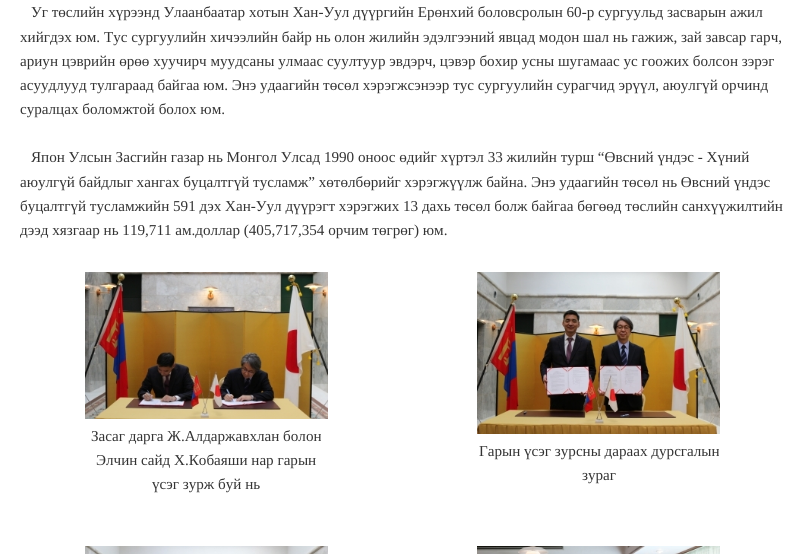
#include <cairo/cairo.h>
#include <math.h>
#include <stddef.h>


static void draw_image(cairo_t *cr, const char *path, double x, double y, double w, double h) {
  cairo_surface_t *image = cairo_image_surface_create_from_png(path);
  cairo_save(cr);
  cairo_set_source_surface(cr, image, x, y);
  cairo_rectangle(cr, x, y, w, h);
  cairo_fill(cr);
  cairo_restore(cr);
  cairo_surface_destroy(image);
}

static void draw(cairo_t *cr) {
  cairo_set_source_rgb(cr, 1, 1, 1);
  cairo_paint(cr);
  draw_image(cr, "images/1.png", 85, 272, 243, 147);
  draw_image(cr, "images/2.png", 477, 272, 243, 162);
  draw_image(cr, "images/3.png", 85, 546, 243, 8);
  draw_image(cr, "images/4.png", 477, 546, 243, 8);
  cairo_select_font_face(cr, "Liberation Serif", CAIRO_FONT_SLANT_NORMAL, CAIRO_FONT_WEIGHT_NORMAL);
  cairo_set_font_size(cr, 15.12);
  cairo_set_source_rgb(cr, 51 / 255.0, 51 / 255.0, 51 / 255.0);
  cairo_move_to(cr, 31, 17);
  cairo_show_text(cr, "Уг төслийн хүрээнд Улаанбаатар хотын Хан-Уул дүүргийн Ерөнхий боловсролын 60-р сургуульд засварын ажил");
  cairo_move_to(cr, 20, 42);
  cairo_show_text(cr, "хийгдэх юм. Тус сургуулийн хичээлийн байр нь олон жилийн эдэлгээний явцад модон шал нь гажиж, зай завсар гарч,");
  cairo_move_to(cr, 20, 66);
  cairo_show_text(cr, "ариун цэврийн өрөө хуучирч муудсаны улмаас суултуур эвдэрч, цэвэр бохир усны шугамаас ус гоожих болсон зэрэг");
  cairo_move_to(cr, 20, 90);
  cairo_show_text(cr, "асуудлууд тулгараад байгаа юм. Энэ удаагийн төсөл хэрэгжсэнээр тус сургуулийн сурагчид эрүүл, аюулгүй орчинд");
  cairo_move_to(cr, 20, 114);
  cairo_show_text(cr, "суралцах боломжтой болох юм.");
  cairo_move_to(cr, 31, 162);
  cairo_show_text(cr, "Япон Улсын Засгийн газар нь Монгол Улсад 1990 оноос өдийг хүртэл 33 жилийн турш “Өвсний үндэс - Хүний");
  cairo_move_to(cr, 20, 187);
  cairo_show_text(cr, "аюулгүй байдлыг хангах буцалтгүй тусламж” хөтөлбөрийг хэрэгжүүлж байна. Энэ удаагийн төсөл нь Өвсний үндэс");
  cairo_move_to(cr, 20, 211);
  cairo_show_text(cr, "буцалтгүй тусламжийн 591 дэх Хан-Уул дүүрэгт хэрэгжих 13 дахь төсөл болж байгаа бөгөөд төслийн санхүүжилтийн");
  cairo_move_to(cr, 20, 235);
  cairo_show_text(cr, "дээд хязгаар нь 119,711 ам.доллар (405,717,354 орчим төгрөг) юм.");
  cairo_move_to(cr, 91, 441);
  cairo_show_text(cr, "Засаг дарга Ж.Алдаржавхлан болон");
  cairo_move_to(cr, 96, 465);
  cairo_show_text(cr, "Элчин сайд Х.Кобаяши нар гарын");
  cairo_move_to(cr, 152, 489);
  cairo_show_text(cr, "үсэг зурж буй нь");
  cairo_move_to(cr, 479, 456);
  cairo_show_text(cr, "Гарын үсэг зурсны дараах дурсгалын");
  cairo_move_to(cr, 582, 480);
  cairo_show_text(cr, "зураг");
}

int main(void) {
  cairo_surface_t *surface = cairo_image_surface_create(CAIRO_FORMAT_RGB24, 805, 554);
  cairo_t *cr = cairo_create(surface);
  cairo_font_options_t *options = cairo_font_options_create();
  cairo_font_options_set_hint_metrics(options, CAIRO_HINT_METRICS_OFF);
  cairo_font_options_set_hint_style(options, CAIRO_HINT_STYLE_NONE);
  cairo_set_font_options(cr, options);
  cairo_set_miter_limit(cr, 4);
  draw(cr);
  cairo_surface_write_to_png(surface, "out.png");
  cairo_font_options_destroy(options);
  cairo_destroy(cr);
  cairo_surface_destroy(surface);
  return 0;
}
